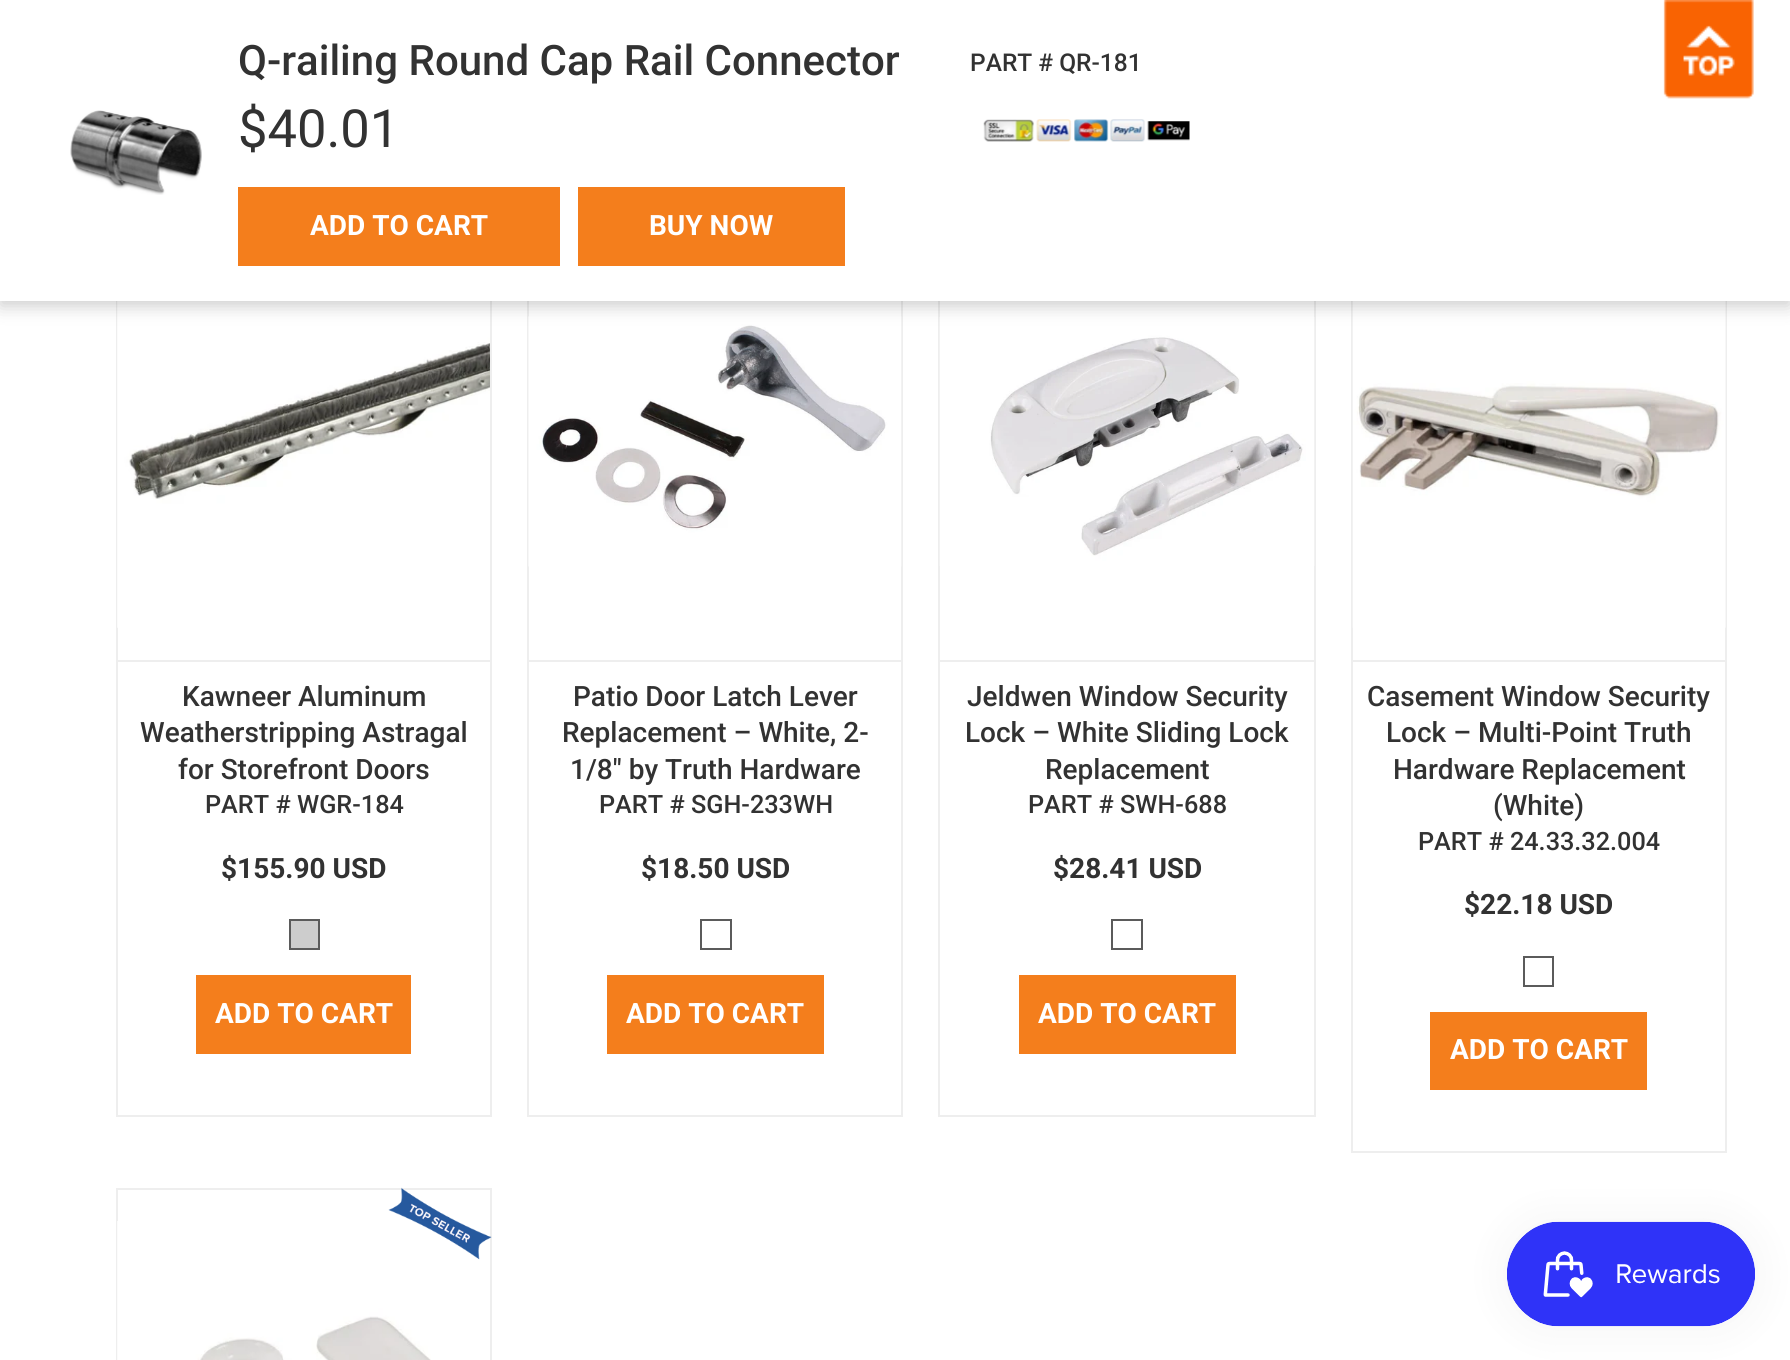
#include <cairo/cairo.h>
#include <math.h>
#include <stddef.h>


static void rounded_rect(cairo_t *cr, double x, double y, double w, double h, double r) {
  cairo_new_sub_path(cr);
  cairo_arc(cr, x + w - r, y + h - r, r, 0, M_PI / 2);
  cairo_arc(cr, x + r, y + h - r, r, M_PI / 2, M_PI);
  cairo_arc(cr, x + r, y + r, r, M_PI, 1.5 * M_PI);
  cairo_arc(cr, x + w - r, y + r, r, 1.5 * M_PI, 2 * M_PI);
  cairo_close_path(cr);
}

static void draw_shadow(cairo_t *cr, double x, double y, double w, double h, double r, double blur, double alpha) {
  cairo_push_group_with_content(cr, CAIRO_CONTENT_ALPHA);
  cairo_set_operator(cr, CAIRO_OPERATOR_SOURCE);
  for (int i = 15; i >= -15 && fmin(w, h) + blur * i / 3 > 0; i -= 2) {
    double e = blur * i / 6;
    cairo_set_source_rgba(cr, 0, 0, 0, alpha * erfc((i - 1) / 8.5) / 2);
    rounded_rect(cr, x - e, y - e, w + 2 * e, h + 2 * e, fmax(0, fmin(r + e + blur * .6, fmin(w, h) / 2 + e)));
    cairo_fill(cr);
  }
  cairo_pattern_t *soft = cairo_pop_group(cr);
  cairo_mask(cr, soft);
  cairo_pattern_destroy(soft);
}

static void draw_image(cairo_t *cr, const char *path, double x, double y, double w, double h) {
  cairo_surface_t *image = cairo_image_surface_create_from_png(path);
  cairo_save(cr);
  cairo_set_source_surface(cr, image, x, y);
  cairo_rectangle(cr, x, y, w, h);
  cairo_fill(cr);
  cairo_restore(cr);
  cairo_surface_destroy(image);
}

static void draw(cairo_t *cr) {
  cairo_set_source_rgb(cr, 1, 1, 1);
  cairo_paint(cr);
  cairo_rectangle(cr, 117, 222, 374, 894);
  cairo_set_source_rgb(cr, 238 / 255.0, 238 / 255.0, 238 / 255.0);
  cairo_stroke(cr);
  draw_image(cr, "images/4.png", 117, 301, 373, 327);
  cairo_rectangle(cr, 528, 222, 374, 894);
  cairo_stroke(cr);
  draw_image(cr, "images/5.png", 528, 316, 374, 251);
  cairo_rectangle(cr, 939, 222, 376, 894);
  cairo_stroke(cr);
  draw_image(cr, "images/6.png", 939, 317, 376, 249);
  cairo_rectangle(cr, 1352, 222, 374, 930);
  cairo_stroke(cr);
  draw_image(cr, "images/7.png", 1352, 301, 374, 327);
  cairo_set_source_rgb(cr, 0, 0, 0);
  draw_shadow(cr, 0, 5, 1790, 301, 0, 9, 0.2);
  cairo_set_source_rgb(cr, 1, 1, 1);
  cairo_rectangle(cr, 0, 0, 1790, 301);
  cairo_fill(cr);
  draw_image(cr, "images/1.png", 70, 110, 132, 85);
  draw_image(cr, "images/2.png", 983, 119, 207, 23);
  cairo_set_source_rgb(cr, 244 / 255.0, 126 / 255.0, 28 / 255.0);
  cairo_rectangle(cr, 238, 187, 322, 79);
  cairo_fill(cr);
  cairo_rectangle(cr, 578, 187, 267, 79);
  cairo_fill(cr);
  draw_image(cr, "images/3.png", 1663, 0, 91, 99);
  cairo_set_source_rgb(cr, 238 / 255.0, 238 / 255.0, 238 / 255.0);
  cairo_rectangle(cr, 117, 660, 373, 2);
  cairo_fill(cr);
  cairo_set_source_rgb(cr, 205 / 255.0, 205 / 255.0, 205 / 255.0);
  cairo_rectangle(cr, 290, 920, 29, 29);
  cairo_fill_preserve(cr);
  cairo_set_source_rgb(cr, 91 / 255.0, 91 / 255.0, 91 / 255.0);
  cairo_stroke(cr);
  cairo_set_source_rgb(cr, 244 / 255.0, 126 / 255.0, 28 / 255.0);
  cairo_rectangle(cr, 196, 975, 215, 79);
  cairo_fill(cr);
  cairo_set_source_rgb(cr, 238 / 255.0, 238 / 255.0, 238 / 255.0);
  cairo_rectangle(cr, 529, 660, 372, 2);
  cairo_fill(cr);
  cairo_rectangle(cr, 701, 920, 30, 29);
  cairo_set_source_rgb(cr, 91 / 255.0, 91 / 255.0, 91 / 255.0);
  cairo_stroke(cr);
  cairo_set_source_rgb(cr, 244 / 255.0, 126 / 255.0, 28 / 255.0);
  cairo_rectangle(cr, 607, 975, 217, 79);
  cairo_fill(cr);
  cairo_set_source_rgb(cr, 238 / 255.0, 238 / 255.0, 238 / 255.0);
  cairo_rectangle(cr, 940, 660, 374, 2);
  cairo_fill(cr);
  cairo_rectangle(cr, 1112, 920, 30, 29);
  cairo_set_source_rgb(cr, 91 / 255.0, 91 / 255.0, 91 / 255.0);
  cairo_stroke(cr);
  cairo_set_source_rgb(cr, 244 / 255.0, 126 / 255.0, 28 / 255.0);
  cairo_rectangle(cr, 1019, 975, 217, 79);
  cairo_fill(cr);
  cairo_set_source_rgb(cr, 238 / 255.0, 238 / 255.0, 238 / 255.0);
  cairo_rectangle(cr, 1353, 660, 373, 2);
  cairo_fill(cr);
  cairo_rectangle(cr, 1524, 957, 29, 29);
  cairo_set_source_rgb(cr, 91 / 255.0, 91 / 255.0, 91 / 255.0);
  cairo_stroke(cr);
  cairo_set_source_rgb(cr, 244 / 255.0, 126 / 255.0, 28 / 255.0);
  cairo_rectangle(cr, 1430, 1012, 217, 78);
  cairo_fill(cr);
  cairo_rectangle(cr, 117, 1189, 374, 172);
  cairo_set_source_rgb(cr, 238 / 255.0, 238 / 255.0, 238 / 255.0);
  cairo_stroke(cr);
  draw_image(cr, "images/9.png", 117, 1221, 314, 139);
  draw_image(cr, "images/8.png", 388, 1187, 104, 73);
  cairo_set_source_rgb(cr, 0, 0, 0);
  draw_shadow(cr, 1507, 1222, 248, 105, 52.5, 22, 0.05);
  draw_image(cr, "images/10.png", 1507, 1221, 248, 106);
  cairo_select_font_face(cr, "Roboto Medium", CAIRO_FONT_SLANT_NORMAL, CAIRO_FONT_WEIGHT_NORMAL);
  cairo_set_font_size(cr, 42);
  cairo_set_source_rgb(cr, 50 / 255.0, 50 / 255.0, 50 / 255.0);
  cairo_move_to(cr, 238, 75);
  cairo_show_text(cr, "Q-railing Round Cap Rail Connector");
  cairo_set_font_size(cr, 24.5);
  cairo_move_to(cr, 970, 71);
  cairo_show_text(cr, "PART # QR-181");
  cairo_select_font_face(cr, "Roboto", CAIRO_FONT_SLANT_NORMAL, CAIRO_FONT_WEIGHT_NORMAL);
  cairo_set_font_size(cr, 52.5);
  cairo_move_to(cr, 238, 147);
  cairo_show_text(cr, "$40.01");
  cairo_select_font_face(cr, "Roboto", CAIRO_FONT_SLANT_NORMAL, CAIRO_FONT_WEIGHT_BOLD);
  cairo_set_font_size(cr, 28);
  cairo_set_source_rgb(cr, 1, 1, 1);
  cairo_move_to(cr, 310, 235);
  cairo_show_text(cr, "ADD TO CART");
  cairo_move_to(cr, 649, 235);
  cairo_show_text(cr, "BUY NOW");
  cairo_select_font_face(cr, "Roboto Medium", CAIRO_FONT_SLANT_NORMAL, CAIRO_FONT_WEIGHT_NORMAL);
  cairo_set_source_rgb(cr, 50 / 255.0, 50 / 255.0, 50 / 255.0);
  cairo_move_to(cr, 182, 706);
  cairo_show_text(cr, "Kawneer Aluminum");
  cairo_move_to(cr, 140, 742);
  cairo_show_text(cr, "Weatherstripping Astragal");
  cairo_move_to(cr, 178, 779);
  cairo_show_text(cr, "for Storefront Doors");
  cairo_set_font_size(cr, 25.25);
  cairo_move_to(cr, 205, 813);
  cairo_show_text(cr, "PART # WGR-184");
  cairo_select_font_face(cr, "Roboto", CAIRO_FONT_SLANT_NORMAL, CAIRO_FONT_WEIGHT_BOLD);
  cairo_set_font_size(cr, 28);
  cairo_move_to(cr, 221, 878);
  cairo_show_text(cr, "$155.90 USD");
  cairo_set_source_rgb(cr, 1, 1, 1);
  cairo_move_to(cr, 215, 1023);
  cairo_show_text(cr, "ADD TO CART");
  cairo_select_font_face(cr, "Roboto Medium", CAIRO_FONT_SLANT_NORMAL, CAIRO_FONT_WEIGHT_NORMAL);
  cairo_set_source_rgb(cr, 50 / 255.0, 50 / 255.0, 50 / 255.0);
  cairo_move_to(cr, 573, 706);
  cairo_show_text(cr, "Patio Door Latch Lever");
  cairo_move_to(cr, 562, 742);
  cairo_show_text(cr, "Replacement – White, 2-");
  cairo_move_to(cr, 570, 779);
  cairo_show_text(cr, "1/8\" by Truth Hardware");
  cairo_set_font_size(cr, 25.25);
  cairo_move_to(cr, 599, 813);
  cairo_show_text(cr, "PART # SGH-233WH");
  cairo_select_font_face(cr, "Roboto", CAIRO_FONT_SLANT_NORMAL, CAIRO_FONT_WEIGHT_BOLD);
  cairo_set_font_size(cr, 28);
  cairo_move_to(cr, 641, 878);
  cairo_show_text(cr, "$18.50 USD");
  cairo_set_source_rgb(cr, 1, 1, 1);
  cairo_move_to(cr, 626, 1023);
  cairo_show_text(cr, "ADD TO CART");
  cairo_select_font_face(cr, "Roboto Medium", CAIRO_FONT_SLANT_NORMAL, CAIRO_FONT_WEIGHT_NORMAL);
  cairo_set_source_rgb(cr, 50 / 255.0, 50 / 255.0, 50 / 255.0);
  cairo_move_to(cr, 967, 706);
  cairo_show_text(cr, "Jeldwen Window Security");
  cairo_move_to(cr, 965, 742);
  cairo_show_text(cr, "Lock – White Sliding Lock");
  cairo_move_to(cr, 1045, 779);
  cairo_show_text(cr, "Replacement");
  cairo_set_font_size(cr, 25.25);
  cairo_move_to(cr, 1028, 813);
  cairo_show_text(cr, "PART # SWH-688");
  cairo_select_font_face(cr, "Roboto", CAIRO_FONT_SLANT_NORMAL, CAIRO_FONT_WEIGHT_BOLD);
  cairo_set_font_size(cr, 28);
  cairo_move_to(cr, 1053, 878);
  cairo_show_text(cr, "$28.41 USD");
  cairo_set_source_rgb(cr, 1, 1, 1);
  cairo_move_to(cr, 1038, 1023);
  cairo_show_text(cr, "ADD TO CART");
  cairo_select_font_face(cr, "Roboto Medium", CAIRO_FONT_SLANT_NORMAL, CAIRO_FONT_WEIGHT_NORMAL);
  cairo_set_source_rgb(cr, 50 / 255.0, 50 / 255.0, 50 / 255.0);
  cairo_move_to(cr, 1367, 706);
  cairo_show_text(cr, "Casement Window Security");
  cairo_move_to(cr, 1386, 742);
  cairo_show_text(cr, "Lock – Multi-Point Truth");
  cairo_move_to(cr, 1393, 779);
  cairo_show_text(cr, "Hardware Replacement");
  cairo_move_to(cr, 1493, 815);
  cairo_show_text(cr, "(White)");
  cairo_set_font_size(cr, 25.25);
  cairo_move_to(cr, 1418, 850);
  cairo_show_text(cr, "PART # 24.33.32.004");
  cairo_select_font_face(cr, "Roboto", CAIRO_FONT_SLANT_NORMAL, CAIRO_FONT_WEIGHT_BOLD);
  cairo_set_font_size(cr, 28);
  cairo_move_to(cr, 1464, 914);
  cairo_show_text(cr, "$22.18 USD");
  cairo_set_source_rgb(cr, 1, 1, 1);
  cairo_move_to(cr, 1450, 1059);
  cairo_show_text(cr, "ADD TO CART");
}

int main(void) {
  cairo_surface_t *surface = cairo_image_surface_create(CAIRO_FORMAT_RGB24, 1790, 1360);
  cairo_t *cr = cairo_create(surface);
  cairo_font_options_t *options = cairo_font_options_create();
  cairo_font_options_set_hint_metrics(options, CAIRO_HINT_METRICS_OFF);
  cairo_font_options_set_hint_style(options, CAIRO_HINT_STYLE_NONE);
  cairo_set_font_options(cr, options);
  cairo_set_miter_limit(cr, 4);
  draw(cr);
  cairo_surface_write_to_png(surface, "out.png");
  cairo_font_options_destroy(options);
  cairo_destroy(cr);
  cairo_surface_destroy(surface);
  return 0;
}
